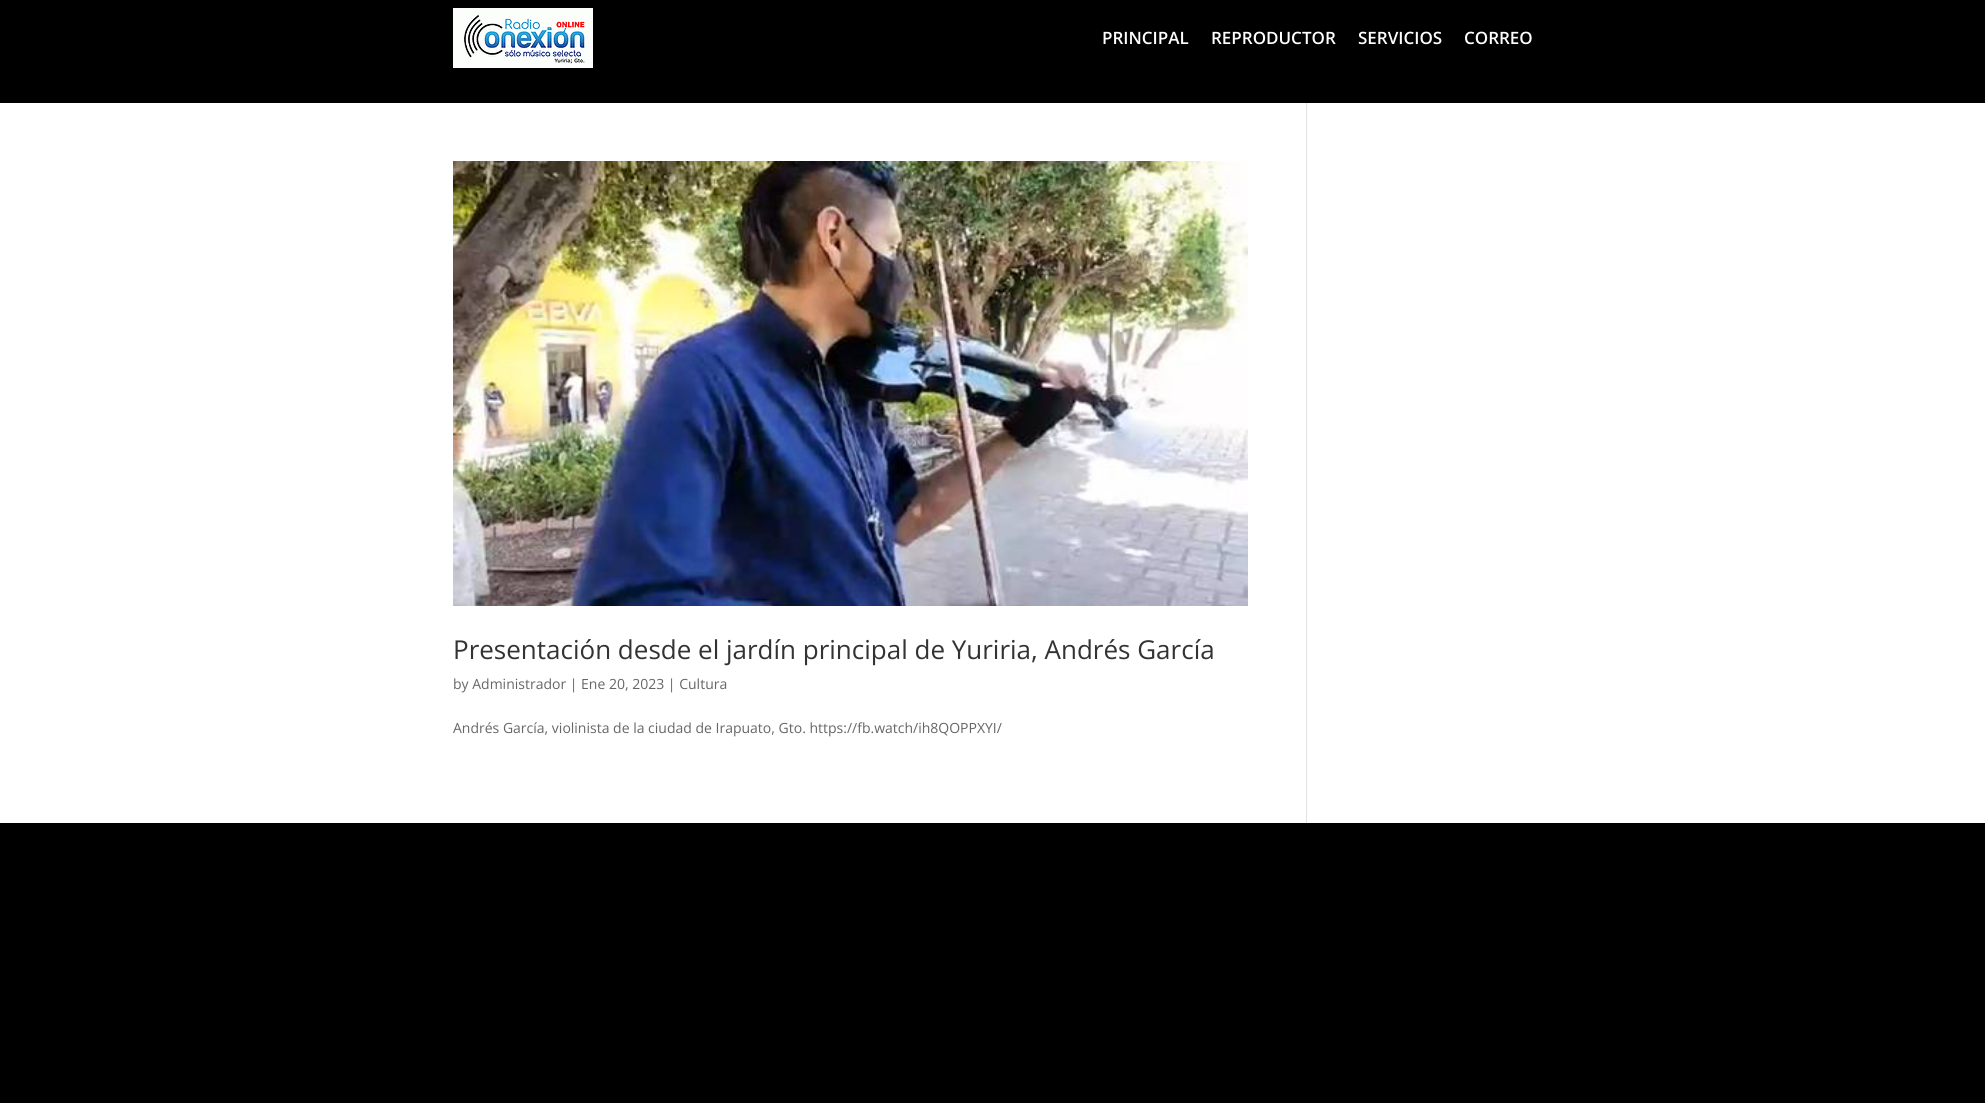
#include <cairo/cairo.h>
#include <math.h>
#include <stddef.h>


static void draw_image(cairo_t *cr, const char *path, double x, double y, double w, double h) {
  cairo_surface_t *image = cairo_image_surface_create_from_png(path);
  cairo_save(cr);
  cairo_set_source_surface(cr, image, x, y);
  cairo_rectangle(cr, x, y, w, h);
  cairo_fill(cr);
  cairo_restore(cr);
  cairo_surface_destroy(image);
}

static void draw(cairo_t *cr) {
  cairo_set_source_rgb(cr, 0, 0, 0);
  cairo_paint(cr);
  draw_image(cr, "images/1.png", 453, 8, 140, 60);
  cairo_set_source_rgb(cr, 1, 1, 1);
  cairo_rectangle(cr, 0, 103, 1985, 720);
  cairo_fill(cr);
  draw_image(cr, "images/2.png", 453, 161, 795, 445);
  cairo_set_source_rgb(cr, 226 / 255.0, 226 / 255.0, 226 / 255.0);
  cairo_rectangle(cr, 1306, 103, 1, 720);
  cairo_fill(cr);
  cairo_select_font_face(cr, "Open Sans SemiBold", CAIRO_FONT_SLANT_NORMAL, CAIRO_FONT_WEIGHT_NORMAL);
  cairo_set_font_size(cr, 17);
  cairo_set_source_rgb(cr, 1, 1, 1);
  cairo_move_to(cr, 1102, 44);
  cairo_show_text(cr, "PRINCIPAL");
  cairo_move_to(cr, 1211, 44);
  cairo_show_text(cr, "REPRODUCTOR");
  cairo_move_to(cr, 1358, 44);
  cairo_show_text(cr, "SERVICIOS");
  cairo_move_to(cr, 1464, 44);
  cairo_show_text(cr, "CORREO");
  cairo_select_font_face(cr, "Open Sans", CAIRO_FONT_SLANT_NORMAL, CAIRO_FONT_WEIGHT_NORMAL);
  cairo_set_font_size(cr, 26);
  cairo_set_source_rgb(cr, 51 / 255.0, 51 / 255.0, 51 / 255.0);
  cairo_move_to(cr, 453, 659);
  cairo_show_text(cr, "Presentación desde el jardín principal de Yuriria, Andrés García");
  cairo_set_font_size(cr, 14);
  cairo_set_source_rgb(cr, 102 / 255.0, 102 / 255.0, 102 / 255.0);
  cairo_move_to(cr, 453, 689);
  cairo_show_text(cr, "by Administrador | Ene 20, 2023 | Cultura");
  cairo_move_to(cr, 453, 733);
  cairo_show_text(cr, "Andrés García, violinista de la ciudad de Irapuato, Gto. https://fb.watch/ih8QOPPXYI/");
}

int main(void) {
  cairo_surface_t *surface = cairo_image_surface_create(CAIRO_FORMAT_RGB24, 1985, 1103);
  cairo_t *cr = cairo_create(surface);
  cairo_font_options_t *options = cairo_font_options_create();
  cairo_font_options_set_hint_metrics(options, CAIRO_HINT_METRICS_OFF);
  cairo_font_options_set_hint_style(options, CAIRO_HINT_STYLE_NONE);
  cairo_set_font_options(cr, options);
  cairo_set_miter_limit(cr, 4);
  draw(cr);
  cairo_surface_write_to_png(surface, "out.png");
  cairo_font_options_destroy(options);
  cairo_destroy(cr);
  cairo_surface_destroy(surface);
  return 0;
}
